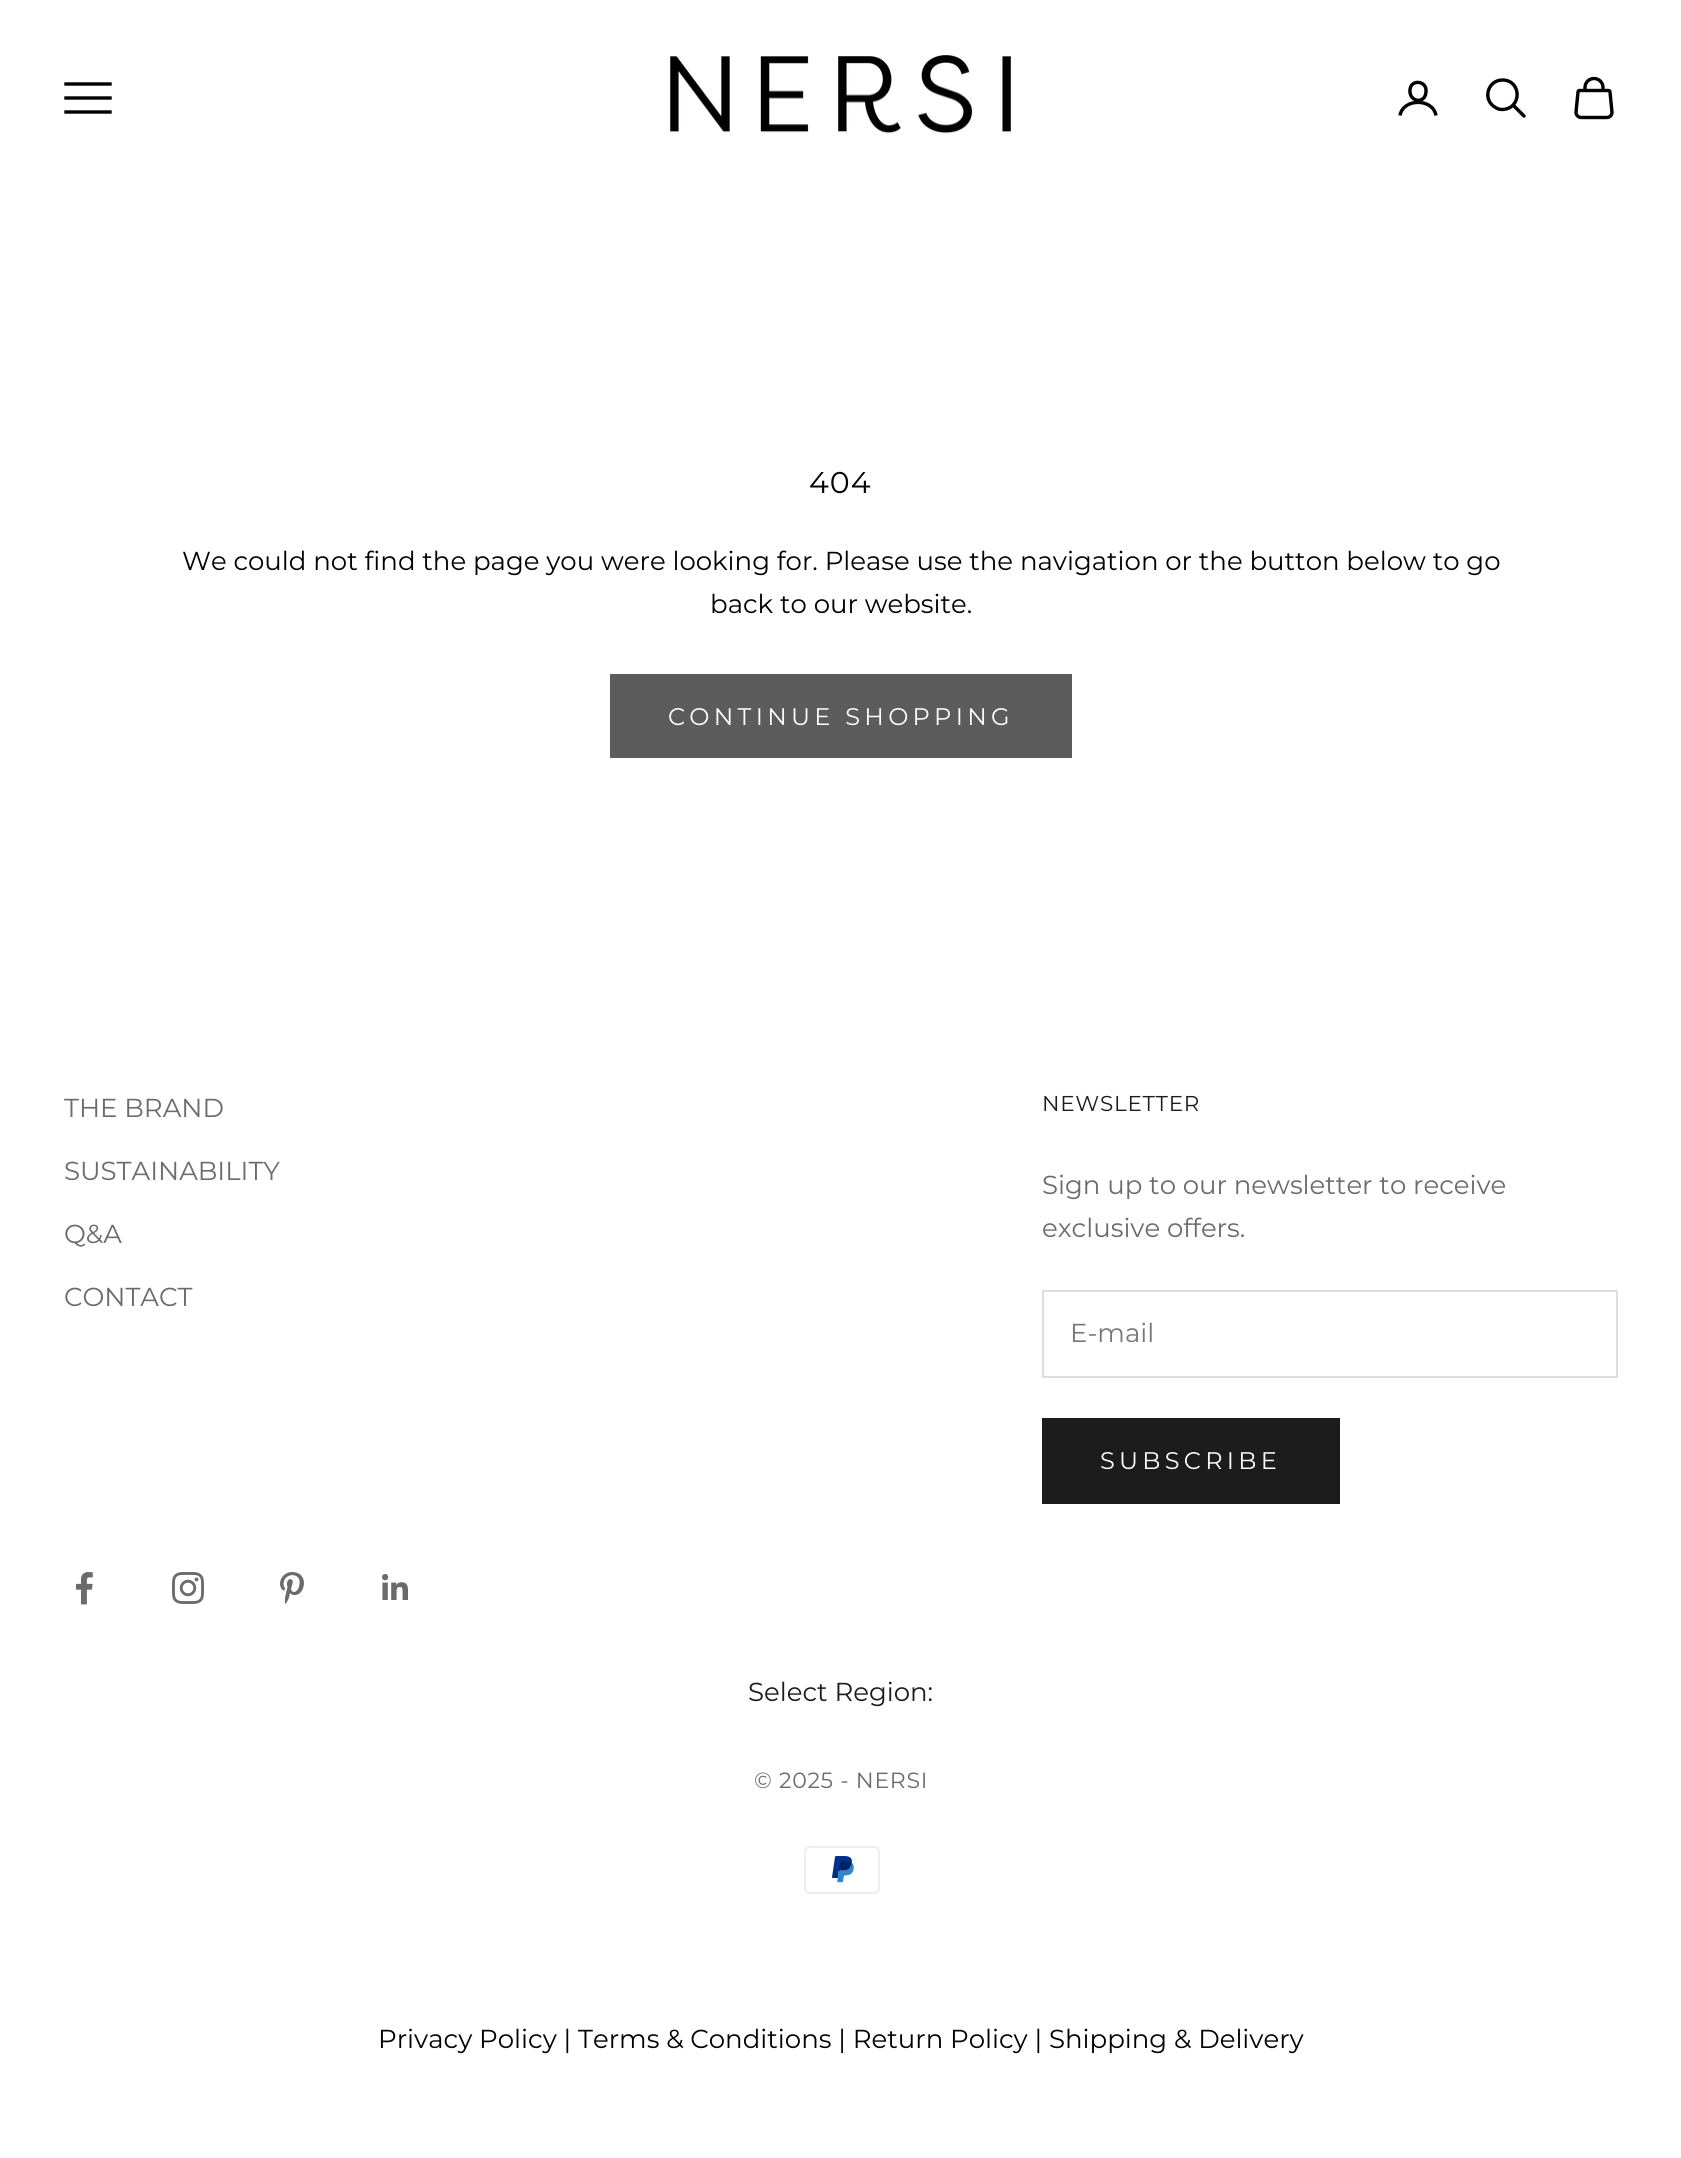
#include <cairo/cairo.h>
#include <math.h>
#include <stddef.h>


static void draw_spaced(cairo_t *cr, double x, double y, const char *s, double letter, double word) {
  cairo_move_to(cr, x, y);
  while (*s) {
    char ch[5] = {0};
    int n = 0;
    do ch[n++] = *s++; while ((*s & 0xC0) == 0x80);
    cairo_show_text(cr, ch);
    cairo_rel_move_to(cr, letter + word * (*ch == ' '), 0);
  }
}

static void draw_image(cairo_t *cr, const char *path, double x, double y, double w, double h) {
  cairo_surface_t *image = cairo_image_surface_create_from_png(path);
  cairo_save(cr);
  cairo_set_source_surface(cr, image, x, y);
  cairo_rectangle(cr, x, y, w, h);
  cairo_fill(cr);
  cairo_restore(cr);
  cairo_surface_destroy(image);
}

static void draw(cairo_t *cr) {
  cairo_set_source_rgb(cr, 1, 1, 1);
  cairo_paint(cr);
  cairo_new_path(cr);
  cairo_move_to(cr, 66, 112);
  cairo_line_to(cr, 110, 112);
  cairo_move_to(cr, 66, 98);
  cairo_line_to(cr, 110, 98);
  cairo_move_to(cr, 66, 84);
  cairo_line_to(cr, 110, 84);
  cairo_set_source_rgb(cr, 0, 0, 0);
  cairo_set_line_width(cr, 3.4);
  cairo_set_line_cap(cr, CAIRO_LINE_CAP_SQUARE);
  cairo_stroke(cr);
  draw_image(cr, "images/1.png", 670, 55, 341, 79);
  cairo_new_path(cr);
  cairo_move_to(cr, 1426, 91.5);
  cairo_curve_to(cr, 1425.5, 105, 1408.5, 102, 1410, 89.5);
  cairo_curve_to(cr, 1411, 79, 1427, 80.5, 1426, 91.5);
  cairo_close_path(cr);
  cairo_set_line_cap(cr, CAIRO_LINE_CAP_ROUND);
  cairo_set_line_join(cr, CAIRO_LINE_JOIN_ROUND);
  cairo_stroke(cr);
  cairo_new_path(cr);
  cairo_move_to(cr, 1400, 115.5);
  cairo_curve_to(cr, 1403, 98, 1433, 98, 1436, 115.5);
  cairo_set_line_cap(cr, CAIRO_LINE_CAP_BUTT);
  cairo_set_line_join(cr, CAIRO_LINE_JOIN_MITER);
  cairo_stroke(cr);
  cairo_new_path(cr);
  cairo_move_to(cr, 1502.5, 80);
  cairo_curve_to(cr, 1487.5, 80, 1482, 100, 1495.5, 107.5);
  cairo_curve_to(cr, 1497.5, 109, 1500, 109.5, 1502.5, 109.5);
  cairo_curve_to(cr, 1522.5, 108.5, 1521.5, 80, 1502.5, 80);
  cairo_close_path(cr);
  cairo_stroke(cr);
  cairo_new_path(cr);
  cairo_move_to(cr, 1513.5, 105.5);
  cairo_line_to(cr, 1524, 116);
  cairo_set_line_cap(cr, CAIRO_LINE_CAP_ROUND);
  cairo_stroke(cr);
  draw_image(cr, "images/2.png", 1574, 76, 40, 44);
  cairo_set_source_rgb(cr, 92 / 255.0, 92 / 255.0, 92 / 255.0);
  cairo_rectangle(cr, 611, 675, 460, 82);
  cairo_fill_preserve(cr);
  cairo_set_line_width(cr, 2);
  cairo_set_line_cap(cr, CAIRO_LINE_CAP_BUTT);
  cairo_stroke(cr);
  cairo_rectangle(cr, 1043, 1291, 574, 86);
  cairo_set_source_rgb(cr, 221 / 255.0, 221 / 255.0, 221 / 255.0);
  cairo_stroke(cr);
  cairo_set_source_rgb(cr, 28 / 255.0, 28 / 255.0, 28 / 255.0);
  cairo_rectangle(cr, 1043, 1419, 296, 84);
  cairo_fill_preserve(cr);
  cairo_stroke(cr);
  draw_image(cr, "images/3.png", 76, 1572, 17, 33);
  draw_image(cr, "images/4.png", 172, 1572, 32, 32);
  draw_image(cr, "images/5.png", 280, 1572, 24, 32);
  draw_image(cr, "images/6.png", 382, 1574, 26, 26);
  draw_image(cr, "images/7.png", 804, 1846, 76, 48);
  cairo_select_font_face(cr, "Montserrat", CAIRO_FONT_SLANT_NORMAL, CAIRO_FONT_WEIGHT_NORMAL);
  cairo_set_font_size(cr, 30);
  cairo_set_source_rgb(cr, 0, 0, 0);
  draw_spaced(cr, 809, 493, "404", 1, 0);
  cairo_set_font_size(cr, 26);
  cairo_move_to(cr, 182, 570);
  cairo_show_text(cr, "We could not find the page you were looking for. Please use the navigation or the button below to go");
  cairo_move_to(cr, 710, 613);
  cairo_show_text(cr, "back to our website.");
  cairo_set_font_size(cr, 24);
  cairo_set_source_rgb(cr, 1, 1, 1);
  draw_spaced(cr, 668, 725, "CONTINUE SHOPPING", 4.3, 0);
  cairo_set_font_size(cr, 26);
  cairo_set_source_rgb(cr, 107 / 255.0, 107 / 255.0, 107 / 255.0);
  cairo_move_to(cr, 64, 1117);
  cairo_show_text(cr, "THE BRAND");
  cairo_move_to(cr, 64, 1180);
  cairo_show_text(cr, "SUSTAINABILITY");
  cairo_move_to(cr, 64, 1243);
  cairo_show_text(cr, "Q&A");
  cairo_move_to(cr, 64, 1306);
  cairo_show_text(cr, "CONTACT");
  cairo_set_font_size(cr, 21.5);
  cairo_set_source_rgb(cr, 28 / 255.0, 28 / 255.0, 28 / 255.0);
  draw_spaced(cr, 1042, 1111, "NEWSLETTER", 0.75, 0);
  cairo_set_font_size(cr, 26);
  cairo_set_source_rgb(cr, 107 / 255.0, 107 / 255.0, 107 / 255.0);
  cairo_move_to(cr, 1042, 1194);
  cairo_show_text(cr, "Sign up to our newsletter to receive");
  cairo_move_to(cr, 1042, 1237);
  cairo_show_text(cr, "exclusive offers.");
  cairo_set_source_rgb(cr, 119 / 255.0, 119 / 255.0, 119 / 255.0);
  cairo_move_to(cr, 1070, 1342);
  cairo_show_text(cr, "E-mail");
  cairo_set_font_size(cr, 24);
  cairo_set_source_rgb(cr, 1, 1, 1);
  draw_spaced(cr, 1100, 1469, "SUBSCRIBE", 4.3, 0);
  cairo_set_font_size(cr, 26);
  cairo_set_source_rgb(cr, 28 / 255.0, 28 / 255.0, 28 / 255.0);
  cairo_move_to(cr, 748, 1701);
  cairo_show_text(cr, "Select Region:");
  cairo_set_font_size(cr, 22);
  cairo_set_source_rgb(cr, 107 / 255.0, 107 / 255.0, 107 / 255.0);
  draw_spaced(cr, 754, 1788, "© 2025 - NERSI", 0.7, 0);
  cairo_set_font_size(cr, 26);
  cairo_set_source_rgb(cr, 0, 0, 0);
  cairo_move_to(cr, 378, 2048);
  cairo_show_text(cr, "Privacy Policy | Terms & Conditions | Return Policy | Shipping & Delivery");
}

int main(void) {
  cairo_surface_t *surface = cairo_image_surface_create(CAIRO_FORMAT_RGB24, 1681, 2158);
  cairo_t *cr = cairo_create(surface);
  cairo_font_options_t *options = cairo_font_options_create();
  cairo_font_options_set_hint_metrics(options, CAIRO_HINT_METRICS_OFF);
  cairo_font_options_set_hint_style(options, CAIRO_HINT_STYLE_NONE);
  cairo_set_font_options(cr, options);
  cairo_set_miter_limit(cr, 4);
  draw(cr);
  cairo_surface_write_to_png(surface, "out.png");
  cairo_font_options_destroy(options);
  cairo_destroy(cr);
  cairo_surface_destroy(surface);
  return 0;
}
